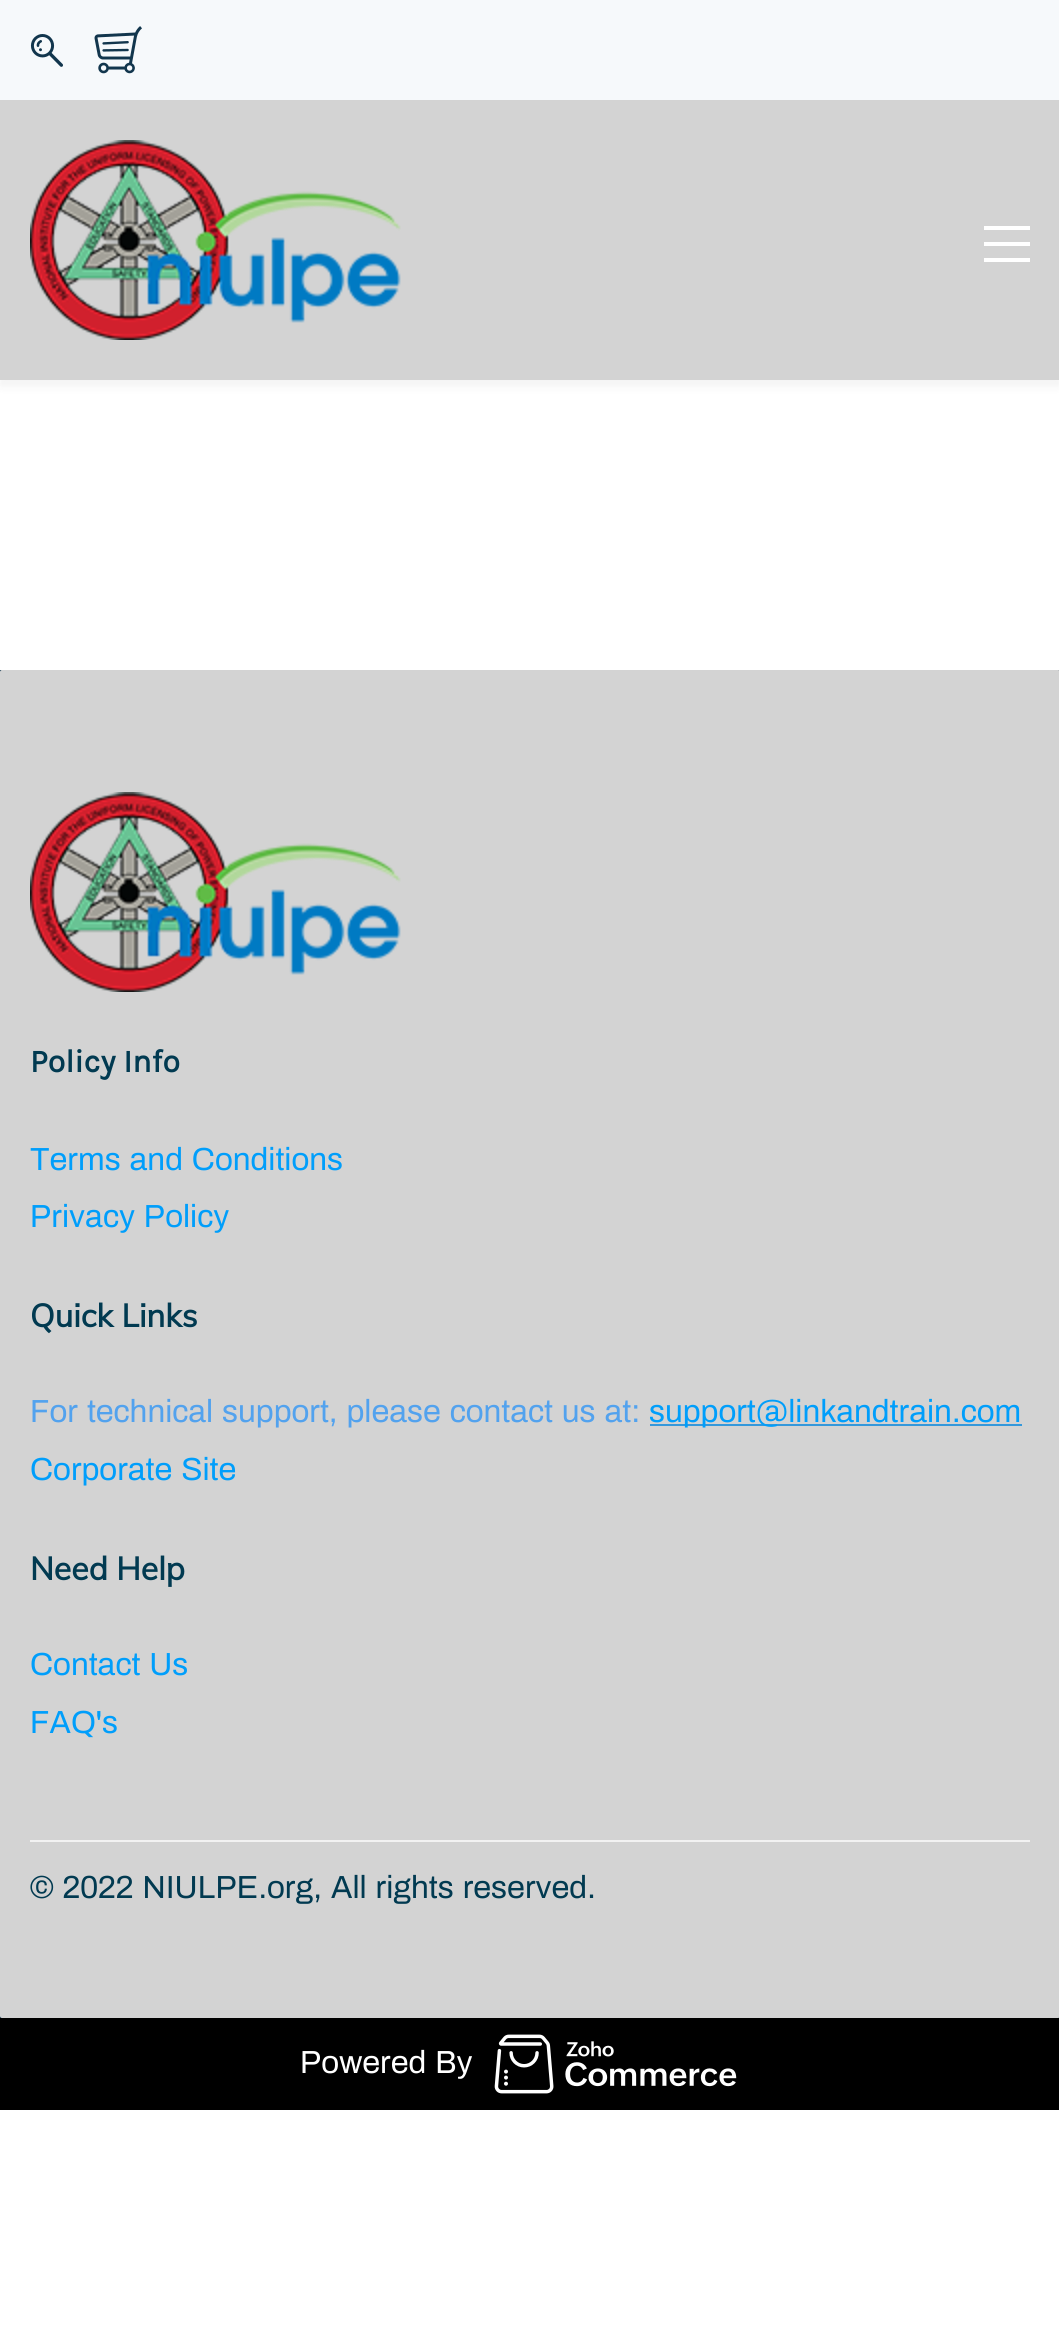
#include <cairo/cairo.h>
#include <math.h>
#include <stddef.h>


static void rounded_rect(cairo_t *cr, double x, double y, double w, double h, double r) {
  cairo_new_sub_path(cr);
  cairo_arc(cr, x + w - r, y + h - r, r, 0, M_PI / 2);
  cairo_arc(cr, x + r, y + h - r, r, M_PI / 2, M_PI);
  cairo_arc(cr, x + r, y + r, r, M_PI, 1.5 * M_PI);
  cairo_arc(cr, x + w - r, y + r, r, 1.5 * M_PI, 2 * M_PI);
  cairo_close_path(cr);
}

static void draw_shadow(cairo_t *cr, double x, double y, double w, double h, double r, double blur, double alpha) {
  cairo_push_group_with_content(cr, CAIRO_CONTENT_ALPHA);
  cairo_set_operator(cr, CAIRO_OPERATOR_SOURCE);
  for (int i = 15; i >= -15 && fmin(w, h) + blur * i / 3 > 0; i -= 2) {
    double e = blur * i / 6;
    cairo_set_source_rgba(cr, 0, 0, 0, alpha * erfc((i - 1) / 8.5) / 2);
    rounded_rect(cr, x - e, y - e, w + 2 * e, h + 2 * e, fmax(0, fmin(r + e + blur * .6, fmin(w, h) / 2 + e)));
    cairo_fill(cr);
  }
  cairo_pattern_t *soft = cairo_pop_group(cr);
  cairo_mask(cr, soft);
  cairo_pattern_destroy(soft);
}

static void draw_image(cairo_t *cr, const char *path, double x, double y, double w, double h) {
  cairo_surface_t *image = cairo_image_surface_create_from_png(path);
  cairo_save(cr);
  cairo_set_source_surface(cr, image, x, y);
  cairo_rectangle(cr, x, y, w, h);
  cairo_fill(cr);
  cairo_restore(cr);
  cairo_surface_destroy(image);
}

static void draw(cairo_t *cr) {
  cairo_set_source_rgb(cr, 1, 1, 1);
  cairo_paint(cr);
  cairo_set_source_rgb(cr, 0, 0, 0);
  draw_shadow(cr, 0, 6, 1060, 380, 0, 5, 0.05);
  cairo_set_source_rgb(cr, 246 / 255.0, 249 / 255.0, 251 / 255.0);
  cairo_rectangle(cr, 0, 0, 1059, 100);
  cairo_fill(cr);
  draw_image(cr, "images/1.png", 30, 34, 33, 33);
  draw_image(cr, "images/2.png", 94, 26, 48, 48);
  cairo_set_source_rgb(cr, 211 / 255.0, 211 / 255.0, 211 / 255.0);
  cairo_rectangle(cr, 0, 100, 1059, 280);
  cairo_fill(cr);
  draw_image(cr, "images/3.png", 30, 140, 371, 200);
  cairo_set_source_rgb(cr, 1, 1, 1);
  cairo_rectangle(cr, 984, 226, 46, 4);
  cairo_fill(cr);
  cairo_rectangle(cr, 984, 242, 46, 4);
  cairo_fill(cr);
  cairo_rectangle(cr, 984, 258, 46, 4);
  cairo_fill(cr);
  cairo_set_source_rgb(cr, 18 / 255.0, 54 / 255.0, 77 / 255.0);
  cairo_rectangle(cr, 0, 670, 1059, 1348);
  cairo_fill(cr);
  cairo_set_source_rgb(cr, 211 / 255.0, 211 / 255.0, 211 / 255.0);
  rounded_rect(cr, 0, 670, 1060, 1348, 2);
  cairo_fill(cr);
  draw_image(cr, "images/3.png", 30, 792, 371, 200);
  cairo_set_source_rgb(cr, 52 / 255.0, 152 / 255.0, 219 / 255.0);
  cairo_rectangle(cr, 650, 1424, 372, 2);
  cairo_fill(cr);
  cairo_set_source_rgb(cr, 242 / 255.0, 242 / 255.0, 242 / 255.0);
  cairo_rectangle(cr, 30, 1840, 1000, 2);
  cairo_fill(cr);
  cairo_set_source_rgb(cr, 0, 0, 0);
  cairo_rectangle(cr, 0, 2018, 1059, 92);
  cairo_fill(cr);
  draw_image(cr, "images/4.png", 494, 2034, 243, 60);
  cairo_select_font_face(cr, "Karla", CAIRO_FONT_SLANT_NORMAL, CAIRO_FONT_WEIGHT_BOLD);
  cairo_set_font_size(cr, 32);
  cairo_set_source_rgb(cr, 1 / 255.0, 58 / 255.0, 81 / 255.0);
  cairo_move_to(cr, 30, 1072);
  cairo_show_text(cr, "Policy Info");
  cairo_select_font_face(cr, "Archivo", CAIRO_FONT_SLANT_NORMAL, CAIRO_FONT_WEIGHT_NORMAL);
  cairo_set_source_rgb(cr, 0, 158 / 255.0, 251 / 255.0);
  cairo_move_to(cr, 30, 1170);
  cairo_show_text(cr, "Terms and Conditions");
  cairo_move_to(cr, 30, 1227);
  cairo_show_text(cr, "Privacy Policy");
  cairo_select_font_face(cr, "Muli", CAIRO_FONT_SLANT_NORMAL, CAIRO_FONT_WEIGHT_BOLD);
  cairo_set_source_rgb(cr, 1 / 255.0, 58 / 255.0, 81 / 255.0);
  cairo_move_to(cr, 30, 1327);
  cairo_show_text(cr, "Quick Links");
  cairo_select_font_face(cr, "Archivo", CAIRO_FONT_SLANT_NORMAL, CAIRO_FONT_WEIGHT_NORMAL);
  cairo_set_source_rgb(cr, 82 / 255.0, 162 / 255.0, 238 / 255.0);
  cairo_move_to(cr, 30, 1422);
  cairo_show_text(cr, "For technical support, please contact us at:");
  cairo_set_source_rgb(cr, 0, 158 / 255.0, 251 / 255.0);
  cairo_move_to(cr, 649, 1422);
  cairo_show_text(cr, "support@linkandtrain.com");
  cairo_move_to(cr, 30, 1480);
  cairo_show_text(cr, "Corporate Site");
  cairo_select_font_face(cr, "Muli", CAIRO_FONT_SLANT_NORMAL, CAIRO_FONT_WEIGHT_BOLD);
  cairo_set_source_rgb(cr, 1 / 255.0, 58 / 255.0, 81 / 255.0);
  cairo_move_to(cr, 30, 1580);
  cairo_show_text(cr, "Need Help");
  cairo_select_font_face(cr, "Archivo", CAIRO_FONT_SLANT_NORMAL, CAIRO_FONT_WEIGHT_NORMAL);
  cairo_set_source_rgb(cr, 0, 158 / 255.0, 251 / 255.0);
  cairo_move_to(cr, 30, 1675);
  cairo_show_text(cr, "Contact Us");
  cairo_move_to(cr, 30, 1733);
  cairo_show_text(cr, "FAQ's");
  cairo_set_source_rgb(cr, 1 / 255.0, 58 / 255.0, 81 / 255.0);
  cairo_move_to(cr, 30, 1898);
  cairo_show_text(cr, "© 2022 NIULPE.org, All rights reserved.");
  cairo_set_source_rgb(cr, 1, 1, 1);
  cairo_move_to(cr, 300, 2073);
  cairo_show_text(cr, "Powered By");
}

int main(void) {
  cairo_surface_t *surface = cairo_image_surface_create(CAIRO_FORMAT_RGB24, 1059, 2328);
  cairo_t *cr = cairo_create(surface);
  cairo_font_options_t *options = cairo_font_options_create();
  cairo_font_options_set_hint_metrics(options, CAIRO_HINT_METRICS_OFF);
  cairo_font_options_set_hint_style(options, CAIRO_HINT_STYLE_NONE);
  cairo_set_font_options(cr, options);
  cairo_set_miter_limit(cr, 4);
  draw(cr);
  cairo_surface_write_to_png(surface, "out.png");
  cairo_font_options_destroy(options);
  cairo_destroy(cr);
  cairo_surface_destroy(surface);
  return 0;
}
